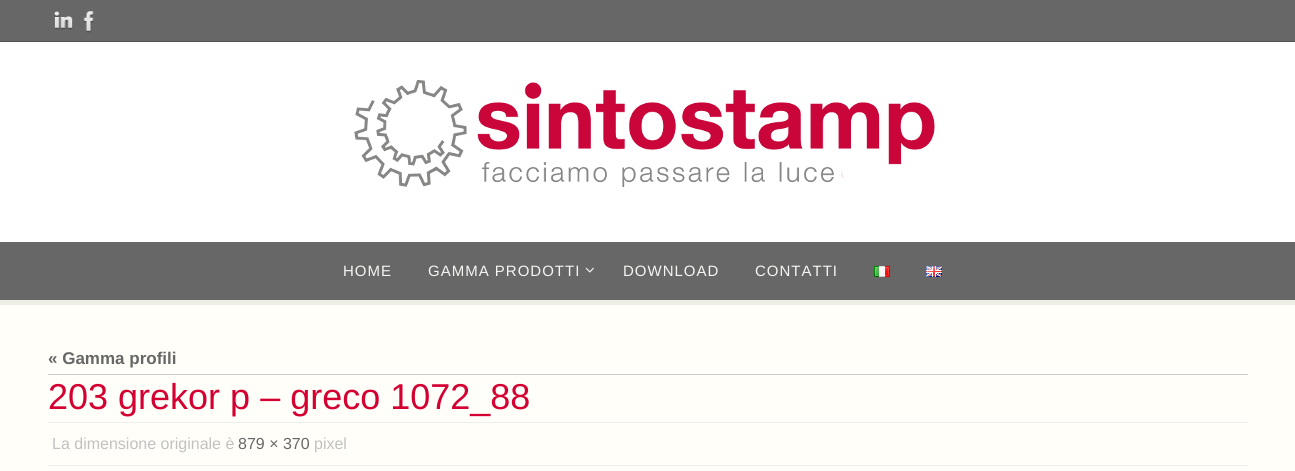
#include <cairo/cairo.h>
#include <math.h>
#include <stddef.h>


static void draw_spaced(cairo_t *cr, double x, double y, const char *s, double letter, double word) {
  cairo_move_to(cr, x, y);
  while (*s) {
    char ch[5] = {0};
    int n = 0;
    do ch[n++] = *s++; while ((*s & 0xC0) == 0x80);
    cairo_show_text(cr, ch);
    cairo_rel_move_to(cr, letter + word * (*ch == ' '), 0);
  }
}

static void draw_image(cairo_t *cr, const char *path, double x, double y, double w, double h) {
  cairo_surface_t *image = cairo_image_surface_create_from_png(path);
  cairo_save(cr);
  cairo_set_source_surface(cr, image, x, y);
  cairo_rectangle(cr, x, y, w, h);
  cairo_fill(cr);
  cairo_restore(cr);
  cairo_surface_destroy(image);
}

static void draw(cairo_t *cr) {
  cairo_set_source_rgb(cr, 238 / 255.0, 237 / 255.0, 230 / 255.0);
  cairo_paint(cr);
  cairo_set_source_rgb(cr, 103 / 255.0, 103 / 255.0, 103 / 255.0);
  cairo_rectangle(cr, 0, 0, 1295, 41);
  cairo_fill(cr);
  cairo_set_source_rgb(cr, 83 / 255.0, 83 / 255.0, 83 / 255.0);
  cairo_rectangle(cr, 0, 41, 1295, 1);
  cairo_fill(cr);
  draw_image(cr, "images/1.png", 54, 11, 19, 19);
  draw_image(cr, "images/2.png", 83, 11, 11, 22);
  cairo_set_source_rgb(cr, 1, 1, 1);
  cairo_rectangle(cr, 0, 42, 1295, 200);
  cairo_fill(cr);
  draw_image(cr, "images/3.png", 354, 79, 581, 108);
  cairo_set_source_rgb(cr, 103 / 255.0, 103 / 255.0, 103 / 255.0);
  cairo_rectangle(cr, 0, 242, 1295, 58);
  cairo_fill(cr);
  draw_image(cr, "images/4.png", 585, 267, 9, 6);
  draw_image(cr, "images/5.png", 874, 266, 16, 11);
  draw_image(cr, "images/6.png", 926, 266, 16, 11);
  cairo_set_source_rgb(cr, 1, 254 / 255.0, 249 / 255.0);
  cairo_rectangle(cr, 0, 305, 1295, 166);
  cairo_fill(cr);
  cairo_set_source_rgb(cr, 204 / 255.0, 204 / 255.0, 204 / 255.0);
  cairo_rectangle(cr, 48, 374, 1200, 1);
  cairo_fill(cr);
  cairo_set_source_rgb(cr, 238 / 255.0, 238 / 255.0, 238 / 255.0);
  cairo_rectangle(cr, 48, 422, 1200, 1);
  cairo_fill(cr);
  cairo_rectangle(cr, 48, 465, 1200, 1);
  cairo_fill(cr);
  cairo_select_font_face(cr, "Liberation Sans", CAIRO_FONT_SLANT_NORMAL, CAIRO_FONT_WEIGHT_NORMAL);
  cairo_set_font_size(cr, 15);
  cairo_set_source_rgb(cr, 246 / 255.0, 245 / 255.0, 241 / 255.0);
  draw_spaced(cr, 343, 276, "HOME", 1, 0);
  draw_spaced(cr, 428, 276, "GAMMA PRODOTTI", 1, 0);
  draw_spaced(cr, 623, 276, "DOWNLOAD", 1, 0);
  draw_spaced(cr, 755, 276, "CONTATTI", 1, 0);
  cairo_select_font_face(cr, "Liberation Sans", CAIRO_FONT_SLANT_NORMAL, CAIRO_FONT_WEIGHT_BOLD);
  cairo_set_font_size(cr, 17);
  cairo_set_source_rgb(cr, 103 / 255.0, 103 / 255.0, 103 / 255.0);
  cairo_move_to(cr, 48, 364);
  cairo_show_text(cr, "« Gamma profili");
  cairo_select_font_face(cr, "Liberation Sans", CAIRO_FONT_SLANT_NORMAL, CAIRO_FONT_WEIGHT_NORMAL);
  cairo_set_font_size(cr, 36);
  cairo_set_source_rgb(cr, 213 / 255.0, 0, 50 / 255.0);
  cairo_move_to(cr, 48, 409);
  cairo_show_text(cr, "203 grekor p – greco 1072_88");
  cairo_set_font_size(cr, 16);
  cairo_set_source_rgb(cr, 193 / 255.0, 193 / 255.0, 193 / 255.0);
  cairo_move_to(cr, 52, 449);
  cairo_show_text(cr, "La dimensione originale è");
  cairo_set_source_rgb(cr, 103 / 255.0, 103 / 255.0, 103 / 255.0);
  cairo_move_to(cr, 238, 449);
  cairo_show_text(cr, "879 × 370");
  cairo_set_source_rgb(cr, 193 / 255.0, 193 / 255.0, 193 / 255.0);
  cairo_move_to(cr, 314, 449);
  cairo_show_text(cr, "pixel");
}

int main(void) {
  cairo_surface_t *surface = cairo_image_surface_create(CAIRO_FORMAT_RGB24, 1295, 471);
  cairo_t *cr = cairo_create(surface);
  cairo_font_options_t *options = cairo_font_options_create();
  cairo_font_options_set_hint_metrics(options, CAIRO_HINT_METRICS_OFF);
  cairo_font_options_set_hint_style(options, CAIRO_HINT_STYLE_NONE);
  cairo_set_font_options(cr, options);
  cairo_set_miter_limit(cr, 4);
  draw(cr);
  cairo_surface_write_to_png(surface, "out.png");
  cairo_font_options_destroy(options);
  cairo_destroy(cr);
  cairo_surface_destroy(surface);
  return 0;
}
